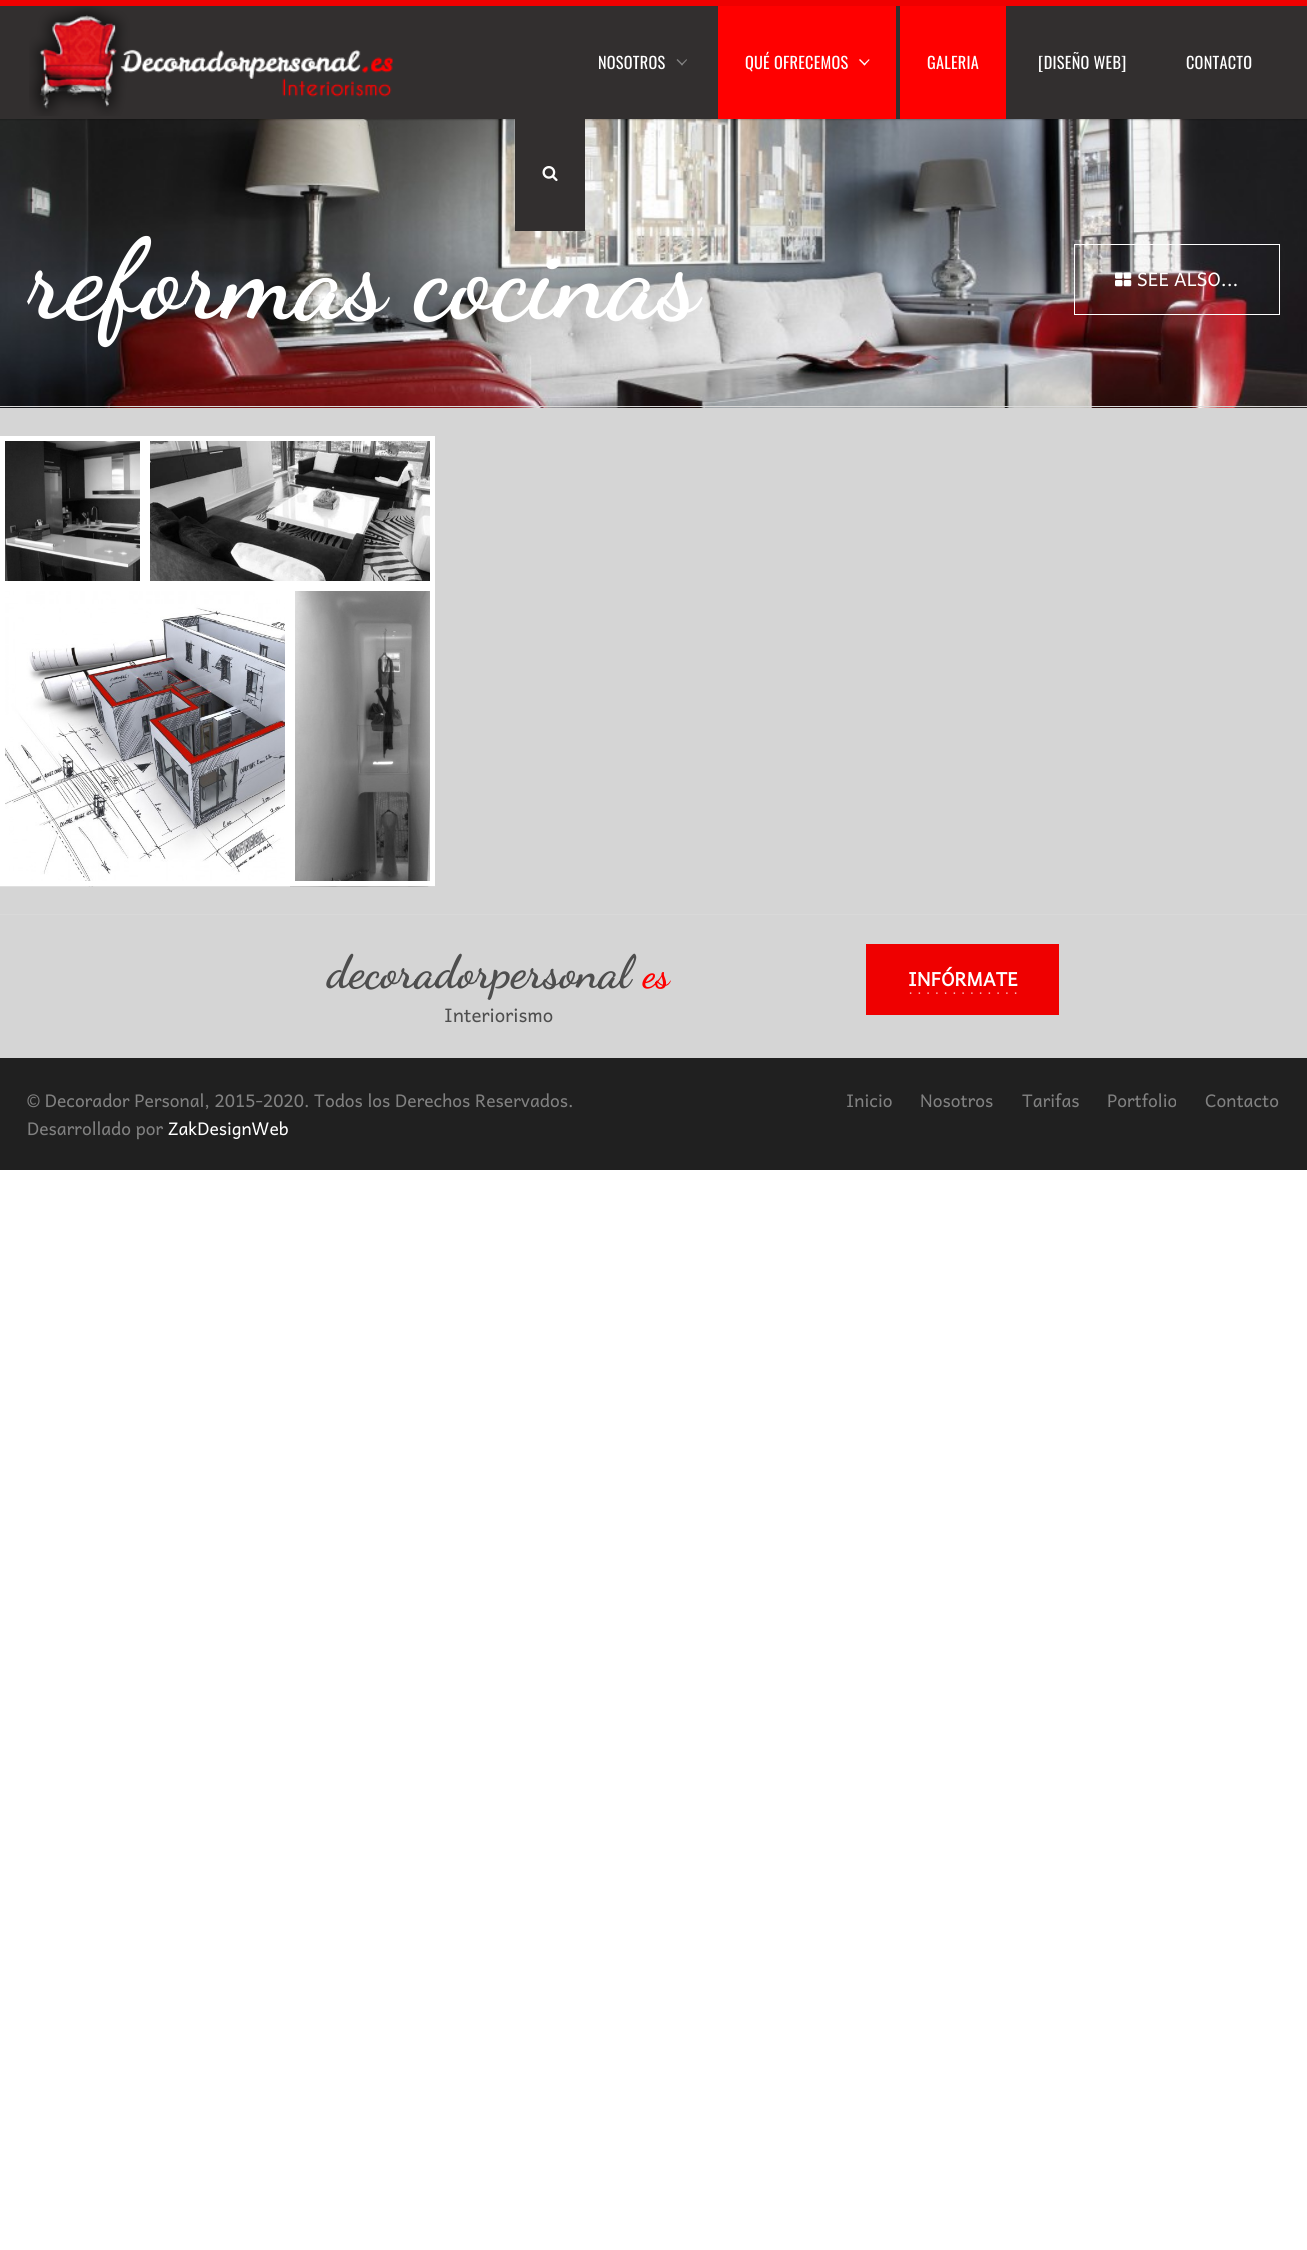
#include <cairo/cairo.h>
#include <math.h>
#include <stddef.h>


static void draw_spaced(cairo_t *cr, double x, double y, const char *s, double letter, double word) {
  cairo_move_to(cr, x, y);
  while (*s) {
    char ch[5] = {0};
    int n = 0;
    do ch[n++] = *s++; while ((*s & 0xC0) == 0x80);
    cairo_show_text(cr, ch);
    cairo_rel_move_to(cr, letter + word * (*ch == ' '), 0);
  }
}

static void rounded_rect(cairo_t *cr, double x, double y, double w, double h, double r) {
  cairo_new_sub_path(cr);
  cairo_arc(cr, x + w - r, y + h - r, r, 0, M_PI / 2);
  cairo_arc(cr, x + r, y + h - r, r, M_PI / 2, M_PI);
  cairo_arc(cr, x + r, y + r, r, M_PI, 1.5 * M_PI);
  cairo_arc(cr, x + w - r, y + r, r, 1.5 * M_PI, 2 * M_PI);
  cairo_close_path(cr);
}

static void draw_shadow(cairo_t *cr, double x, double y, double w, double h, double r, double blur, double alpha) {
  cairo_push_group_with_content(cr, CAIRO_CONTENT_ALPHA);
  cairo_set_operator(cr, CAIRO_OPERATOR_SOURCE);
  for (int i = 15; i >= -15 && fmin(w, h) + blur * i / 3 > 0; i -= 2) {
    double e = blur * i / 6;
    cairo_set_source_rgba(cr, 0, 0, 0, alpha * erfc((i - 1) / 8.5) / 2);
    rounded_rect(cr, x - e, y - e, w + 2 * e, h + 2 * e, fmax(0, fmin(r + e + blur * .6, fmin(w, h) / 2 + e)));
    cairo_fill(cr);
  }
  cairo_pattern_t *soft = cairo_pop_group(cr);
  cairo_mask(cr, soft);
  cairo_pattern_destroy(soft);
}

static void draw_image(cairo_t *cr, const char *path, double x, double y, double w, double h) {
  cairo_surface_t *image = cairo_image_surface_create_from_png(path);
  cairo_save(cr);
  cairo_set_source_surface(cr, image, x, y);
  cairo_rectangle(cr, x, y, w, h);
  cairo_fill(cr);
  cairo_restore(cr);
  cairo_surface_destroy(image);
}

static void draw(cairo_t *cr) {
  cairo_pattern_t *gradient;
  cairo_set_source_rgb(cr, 1, 1, 1);
  cairo_paint(cr);
  draw_image(cr, "images/3.png", 0, 119, 1307, 289);
  cairo_set_source_rgb(cr, 0, 0, 0);
  draw_shadow(cr, 0, 1, 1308, 119, 0, 0.5, 0.2);
  cairo_set_source_rgb(cr, 50 / 255.0, 47 / 255.0, 47 / 255.0);
  cairo_rectangle(cr, 0, 6, 1307, 113);
  cairo_fill(cr);
  cairo_set_source_rgb(cr, 239 / 255.0, 0, 0);
  cairo_rectangle(cr, 0, 0, 1307, 6);
  cairo_fill(cr);
  draw_image(cr, "images/1.png", 29, 6, 364, 110);
  cairo_set_source_rgb(cr, 129 / 255.0, 129 / 255.0, 129 / 255.0);
  cairo_new_path(cr);
  cairo_move_to(cr, 687, 60);
  cairo_line_to(cr, 682, 65.5);
  cairo_line_to(cr, 681, 64.5);
  cairo_line_to(cr, 686.5, 59);
  cairo_close_path(cr);
  cairo_fill(cr);
  cairo_new_path(cr);
  cairo_move_to(cr, 683, 64.5);
  cairo_line_to(cr, 682, 65.5);
  cairo_line_to(cr, 676.5, 60);
  cairo_line_to(cr, 677.5, 59);
  cairo_close_path(cr);
  cairo_fill(cr);
  gradient = cairo_pattern_create_linear(807, 6.2, 807, 243);
  cairo_pattern_add_color_stop_rgba(gradient, 0, 1, 0, 0, 1);
  cairo_pattern_add_color_stop_rgba(gradient, 0.5, 1, 0, 0, 1);
  cairo_pattern_add_color_stop_rgba(gradient, 0.5, 239 / 255.0, 0, 0, 1);
  cairo_pattern_add_color_stop_rgba(gradient, 1, 239 / 255.0, 0, 0, 1);
  cairo_set_source(cr, gradient);
  cairo_pattern_destroy(gradient);
  cairo_rectangle(cr, 718, 6, 178, 113);
  cairo_fill(cr);
  cairo_set_source_rgb(cr, 1, 1, 1);
  cairo_new_path(cr);
  cairo_move_to(cr, 869.5, 60);
  cairo_line_to(cr, 864.5, 65.5);
  cairo_line_to(cr, 863.5, 64.5);
  cairo_line_to(cr, 869, 59);
  cairo_close_path(cr);
  cairo_fill(cr);
  cairo_new_path(cr);
  cairo_move_to(cr, 865.5, 64.5);
  cairo_line_to(cr, 864.5, 65.5);
  cairo_line_to(cr, 859, 60);
  cairo_line_to(cr, 860, 59);
  cairo_close_path(cr);
  cairo_fill(cr);
  gradient = cairo_pattern_create_linear(953, 6.2, 953, 243);
  cairo_pattern_add_color_stop_rgba(gradient, 0, 1, 0, 0, 1);
  cairo_pattern_add_color_stop_rgba(gradient, 0.5, 1, 0, 0, 1);
  cairo_pattern_add_color_stop_rgba(gradient, 0.5, 239 / 255.0, 0, 0, 1);
  cairo_pattern_add_color_stop_rgba(gradient, 1, 239 / 255.0, 0, 0, 1);
  cairo_set_source(cr, gradient);
  cairo_pattern_destroy(gradient);
  cairo_rectangle(cr, 900, 6, 106, 113);
  cairo_fill(cr);
  cairo_set_source_rgb(cr, 50 / 255.0, 47 / 255.0, 47 / 255.0);
  cairo_rectangle(cr, 515, 119, 70, 112);
  cairo_fill(cr);
  draw_image(cr, "images/2.png", 542, 166, 16, 16);
  cairo_rectangle(cr, 1074.5, 244.5, 205, 70);
  cairo_set_source_rgb(cr, 1, 1, 1);
  cairo_set_line_width(cr, 1);
  cairo_stroke(cr);
  draw_image(cr, "images/4.png", 1115, 272, 17, 15);
  cairo_set_source_rgb(cr, 217 / 255.0, 217 / 255.0, 217 / 255.0);
  cairo_rectangle(cr, 0, 406, 1307, 1);
  cairo_fill(cr);
  cairo_set_source_rgb(cr, 213 / 255.0, 213 / 255.0, 213 / 255.0);
  cairo_rectangle(cr, 0, 408, 1307, 506);
  cairo_fill(cr);
  draw_image(cr, "images/5.png", 5, 441, 135, 140);
  cairo_rectangle(cr, 2.5, 438.5, 140, 145);
  cairo_set_source_rgb(cr, 1, 1, 1);
  cairo_set_line_width(cr, 5);
  cairo_stroke(cr);
  draw_image(cr, "images/6.png", 150, 441, 280, 140);
  cairo_rectangle(cr, 147.5, 438.5, 285, 145);
  cairo_stroke(cr);
  draw_image(cr, "images/7.png", 0, 591, 290, 296);
  cairo_rectangle(cr, 2.5, 588.5, 285, 295);
  cairo_stroke(cr);
  draw_image(cr, "images/8.png", 290, 591, 145, 296);
  cairo_rectangle(cr, 292.5, 588.5, 140, 295);
  cairo_stroke(cr);
  cairo_set_source_rgb(cr, 213 / 255.0, 213 / 255.0, 213 / 255.0);
  cairo_rectangle(cr, 0, 915, 1307, 143);
  cairo_fill(cr);
  cairo_set_source_rgb(cr, 217 / 255.0, 217 / 255.0, 217 / 255.0);
  cairo_rectangle(cr, 0, 914, 1307, 1);
  cairo_fill(cr);
  cairo_set_source_rgb(cr, 239 / 255.0, 0, 0);
  cairo_rectangle(cr, 866, 944, 193, 71);
  cairo_fill(cr);
  draw_image(cr, "images/9.png", 909, 992, 108, 2);
  cairo_set_source_rgb(cr, 32 / 255.0, 32 / 255.0, 32 / 255.0);
  cairo_rectangle(cr, 0, 1058, 1307, 112);
  cairo_fill(cr);
  cairo_select_font_face(cr, "Oswald", CAIRO_FONT_SLANT_NORMAL, CAIRO_FONT_WEIGHT_NORMAL);
  cairo_set_font_size(cr, 16.25);
  cairo_set_source_rgb(cr, 1, 1, 1);
  draw_spaced(cr, 598, 69, "NOSOTROS", 0.25, 0);
  draw_spaced(cr, 745, 69, "QUÉ OFRECEMOS", 0.25, 0);
  draw_spaced(cr, 927, 69, "GALERIA", 0.25, 0);
  draw_spaced(cr, 1038, 69, "[DISEÑO WEB]", 0.25, 0);
  draw_spaced(cr, 1186, 69, "CONTACTO", 0.25, 0);
  cairo_select_font_face(cr, "Dancing Script", CAIRO_FONT_SLANT_NORMAL, CAIRO_FONT_WEIGHT_BOLD);
  cairo_set_font_size(cr, 111.25);
  cairo_move_to(cr, 27, 316);
  cairo_show_text(cr, "reformas cocinas");
  cairo_select_font_face(cr, "Andika", CAIRO_FONT_SLANT_NORMAL, CAIRO_FONT_WEIGHT_NORMAL);
  cairo_set_font_size(cr, 18.75);
  cairo_move_to(cr, 1137, 286);
  cairo_show_text(cr, "SEE ALSO...");
  cairo_select_font_face(cr, "Dancing Script", CAIRO_FONT_SLANT_NORMAL, CAIRO_FONT_WEIGHT_BOLD);
  cairo_set_font_size(cr, 46.25);
  cairo_set_source_rgb(cr, 78 / 255.0, 78 / 255.0, 78 / 255.0);
  cairo_move_to(cr, 327, 987);
  cairo_show_text(cr, "decoradorpersonal");
  cairo_set_font_size(cr, 38);
  cairo_set_source_rgb(cr, 1, 0, 0);
  cairo_move_to(cr, 643, 987);
  cairo_show_text(cr, "es");
  cairo_select_font_face(cr, "Andika", CAIRO_FONT_SLANT_NORMAL, CAIRO_FONT_WEIGHT_NORMAL);
  cairo_set_font_size(cr, 18.75);
  cairo_set_source_rgb(cr, 78 / 255.0, 78 / 255.0, 78 / 255.0);
  cairo_move_to(cr, 444, 1022);
  cairo_show_text(cr, "Interiorismo");
  cairo_select_font_face(cr, "Andika", CAIRO_FONT_SLANT_NORMAL, CAIRO_FONT_WEIGHT_BOLD);
  cairo_set_source_rgb(cr, 1, 1, 1);
  cairo_move_to(cr, 908, 986);
  cairo_show_text(cr, "INFÓRMATE");
  cairo_select_font_face(cr, "Andika", CAIRO_FONT_SLANT_NORMAL, CAIRO_FONT_WEIGHT_NORMAL);
  cairo_set_font_size(cr, 17.5);
  cairo_set_source_rgb(cr, 129 / 255.0, 129 / 255.0, 129 / 255.0);
  cairo_move_to(cr, 27, 1107);
  cairo_show_text(cr, "© Decorador Personal, 2015-2020. Todos los Derechos Reservados.");
  cairo_move_to(cr, 27, 1135);
  cairo_show_text(cr, "Desarrollado por");
  cairo_set_source_rgb(cr, 1, 1, 1);
  cairo_move_to(cr, 168, 1135);
  cairo_show_text(cr, "ZakDesignWeb");
  cairo_set_source_rgb(cr, 129 / 255.0, 129 / 255.0, 129 / 255.0);
  cairo_move_to(cr, 846, 1107);
  cairo_show_text(cr, "Inicio");
  cairo_move_to(cr, 920, 1107);
  cairo_show_text(cr, "Nosotros");
  cairo_move_to(cr, 1022, 1107);
  cairo_show_text(cr, "Tarifas");
  cairo_move_to(cr, 1107, 1107);
  cairo_show_text(cr, "Portfolio");
  cairo_move_to(cr, 1205, 1107);
  cairo_show_text(cr, "Contacto");
}

int main(void) {
  cairo_surface_t *surface = cairo_image_surface_create(CAIRO_FORMAT_RGB24, 1307, 2250);
  cairo_t *cr = cairo_create(surface);
  cairo_font_options_t *options = cairo_font_options_create();
  cairo_font_options_set_hint_metrics(options, CAIRO_HINT_METRICS_OFF);
  cairo_font_options_set_hint_style(options, CAIRO_HINT_STYLE_NONE);
  cairo_set_font_options(cr, options);
  cairo_set_miter_limit(cr, 4);
  draw(cr);
  cairo_surface_write_to_png(surface, "out.png");
  cairo_font_options_destroy(options);
  cairo_destroy(cr);
  cairo_surface_destroy(surface);
  return 0;
}
